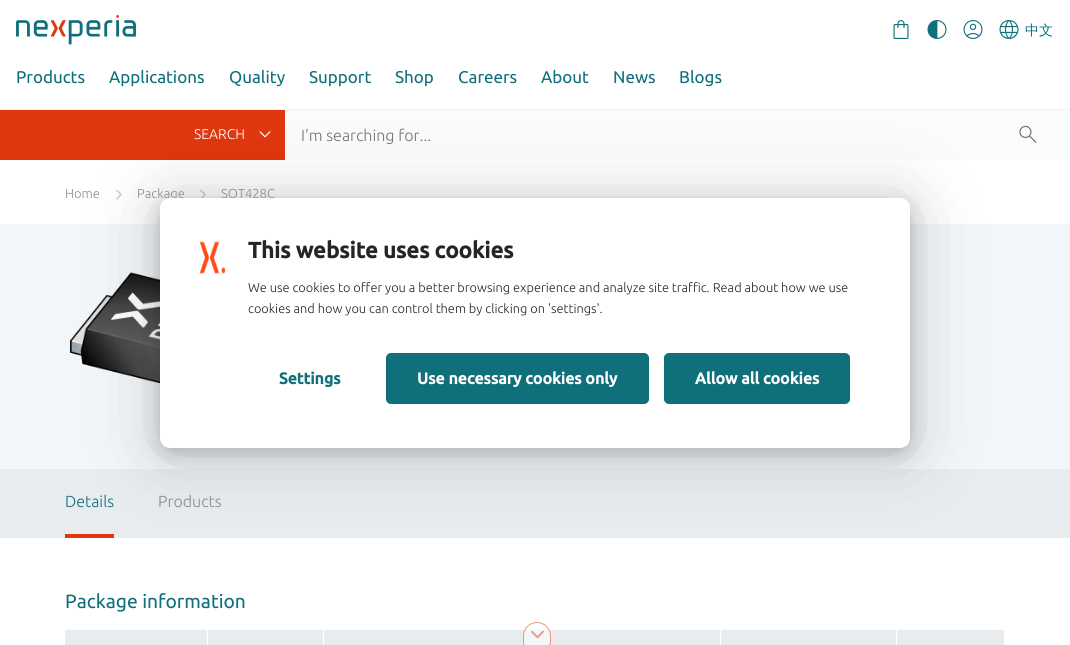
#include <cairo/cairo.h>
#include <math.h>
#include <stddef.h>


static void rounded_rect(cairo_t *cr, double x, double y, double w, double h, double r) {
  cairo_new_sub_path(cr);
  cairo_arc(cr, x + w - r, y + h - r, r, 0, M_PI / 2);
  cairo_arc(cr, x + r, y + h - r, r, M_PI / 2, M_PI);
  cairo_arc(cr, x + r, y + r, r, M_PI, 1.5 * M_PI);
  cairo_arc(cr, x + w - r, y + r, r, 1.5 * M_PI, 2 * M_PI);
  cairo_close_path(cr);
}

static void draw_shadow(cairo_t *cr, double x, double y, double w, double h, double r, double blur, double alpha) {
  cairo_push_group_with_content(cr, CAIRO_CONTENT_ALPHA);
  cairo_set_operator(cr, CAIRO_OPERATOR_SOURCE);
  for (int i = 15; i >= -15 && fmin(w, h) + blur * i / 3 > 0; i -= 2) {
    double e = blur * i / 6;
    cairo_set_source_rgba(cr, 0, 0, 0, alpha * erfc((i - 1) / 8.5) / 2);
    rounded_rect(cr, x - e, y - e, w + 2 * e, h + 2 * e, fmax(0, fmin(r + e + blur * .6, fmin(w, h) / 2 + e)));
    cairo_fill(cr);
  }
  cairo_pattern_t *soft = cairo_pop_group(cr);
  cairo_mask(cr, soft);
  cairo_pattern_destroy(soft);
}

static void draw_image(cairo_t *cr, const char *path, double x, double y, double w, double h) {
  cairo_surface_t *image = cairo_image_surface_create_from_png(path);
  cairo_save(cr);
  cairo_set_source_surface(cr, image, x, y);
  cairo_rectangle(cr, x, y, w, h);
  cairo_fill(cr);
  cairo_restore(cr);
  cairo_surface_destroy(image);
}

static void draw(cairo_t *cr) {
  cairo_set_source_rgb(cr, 1, 1, 1);
  cairo_paint(cr);
  cairo_set_source_rgb(cr, 242 / 255.0, 246 / 255.0, 248 / 255.0);
  cairo_rectangle(cr, 0, 109, 1070, 1);
  cairo_fill(cr);
  draw_image(cr, "images/1.png", 16, 15, 120, 30);
  draw_image(cr, "images/2.png", 893, 20, 16, 19);
  draw_image(cr, "images/3.png", 927, 20, 20, 19);
  draw_image(cr, "images/4.png", 963, 20, 20, 19);
  draw_image(cr, "images/5.png", 999, 20, 20, 19);
  cairo_set_source_rgb(cr, 224 / 255.0, 55 / 255.0, 15 / 255.0);
  cairo_rectangle(cr, 0, 110, 285, 50);
  cairo_fill(cr);
  cairo_set_source_rgb(cr, 250 / 255.0, 252 / 255.0, 252 / 255.0);
  cairo_rectangle(cr, 285, 110, 785, 50);
  cairo_fill(cr);
  draw_image(cr, "images/6.png", 259, 131, 12, 7);
  draw_image(cr, "images/7.png", 1019, 125, 18, 18);
  draw_image(cr, "images/8.png", 116, 189, 6, 11);
  draw_image(cr, "images/9.png", 200, 189, 6, 9);
  cairo_set_source_rgb(cr, 243 / 255.0, 246 / 255.0, 248 / 255.0);
  cairo_rectangle(cr, 0, 224, 1070, 245);
  cairo_fill(cr);
  draw_image(cr, "images/10.png", 70, 272, 90, 112);
  cairo_set_source_rgb(cr, 233 / 255.0, 236 / 255.0, 238 / 255.0);
  cairo_rectangle(cr, 0, 469, 1070, 69);
  cairo_fill(cr);
  cairo_set_source_rgb(cr, 224 / 255.0, 55 / 255.0, 15 / 255.0);
  cairo_rectangle(cr, 65, 534, 49, 4);
  cairo_fill(cr);
  cairo_set_source_rgb(cr, 233 / 255.0, 236 / 255.0, 238 / 255.0);
  cairo_rectangle(cr, 65, 630, 142, 15);
  cairo_fill(cr);
  cairo_rectangle(cr, 208, 630, 115, 15);
  cairo_fill(cr);
  cairo_rectangle(cr, 324, 630, 396, 15);
  cairo_fill(cr);
  cairo_rectangle(cr, 721, 630, 175, 15);
  cairo_fill(cr);
  cairo_rectangle(cr, 897, 630, 107, 15);
  cairo_fill(cr);
  cairo_set_source_rgba(cr, 1, 1, 1, 0.5);
  rounded_rect(cr, 523, 622, 28, 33, 14);
  cairo_fill(cr);
  rounded_rect(cr, 523.5, 622.5, 27, 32, 13.5);
  cairo_set_source_rgba(cr, 224 / 255.0, 55 / 255.0, 15 / 255.0, 0.5);
  cairo_set_line_width(cr, 1);
  cairo_stroke(cr);
  draw_image(cr, "images/11.png", 531, 630, 13, 9);
  cairo_set_source_rgb(cr, 0, 0, 0);
  draw_shadow(cr, 160, 204, 750, 250, 10, 10, 0.19);
  draw_shadow(cr, 160, 202, 750, 250, 10, 35, 0.2);
  cairo_select_font_face(cr, "WenQuanYi Zen Hei Medium", CAIRO_FONT_SLANT_NORMAL, CAIRO_FONT_WEIGHT_NORMAL);
  cairo_set_font_size(cr, 14);
  cairo_set_source_rgb(cr, 15 / 255.0, 111 / 255.0, 123 / 255.0);
  cairo_move_to(cr, 1025, 35);
  cairo_show_text(cr, "中文");
  cairo_select_font_face(cr, "Ubuntu", CAIRO_FONT_SLANT_NORMAL, CAIRO_FONT_WEIGHT_NORMAL);
  cairo_set_font_size(cr, 17);
  cairo_move_to(cr, 16, 83);
  cairo_show_text(cr, "Products");
  cairo_move_to(cr, 109, 83);
  cairo_show_text(cr, "Applications");
  cairo_move_to(cr, 229, 83);
  cairo_show_text(cr, "Quality");
  cairo_move_to(cr, 309, 83);
  cairo_show_text(cr, "Support");
  cairo_move_to(cr, 395, 83);
  cairo_show_text(cr, "Shop");
  cairo_move_to(cr, 458, 83);
  cairo_show_text(cr, "Careers");
  cairo_move_to(cr, 541, 83);
  cairo_show_text(cr, "About");
  cairo_move_to(cr, 613, 83);
  cairo_show_text(cr, "News");
  cairo_move_to(cr, 679, 83);
  cairo_show_text(cr, "Blogs");
  cairo_select_font_face(cr, "Ubuntu Light", CAIRO_FONT_SLANT_NORMAL, CAIRO_FONT_WEIGHT_NORMAL);
  cairo_set_font_size(cr, 14);
  cairo_set_source_rgb(cr, 1, 1, 1);
  cairo_move_to(cr, 194, 139);
  cairo_show_text(cr, "SEARCH");
  cairo_set_font_size(cr, 16);
  cairo_set_source_rgb(cr, 117 / 255.0, 117 / 255.0, 117 / 255.0);
  cairo_move_to(cr, 301, 141);
  cairo_show_text(cr, "I'm searching for...");
  cairo_set_font_size(cr, 13);
  cairo_set_source_rgb(cr, 139 / 255.0, 139 / 255.0, 139 / 255.0);
  cairo_move_to(cr, 65, 198);
  cairo_show_text(cr, "Home");
  cairo_move_to(cr, 137, 198);
  cairo_show_text(cr, "Package");
  cairo_move_to(cr, 221, 198);
  cairo_show_text(cr, "SOT428C");
  cairo_set_font_size(cr, 16);
  cairo_set_source_rgb(cr, 15 / 255.0, 111 / 255.0, 123 / 255.0);
  cairo_move_to(cr, 65, 507);
  cairo_show_text(cr, "Details");
  cairo_set_source_rgb(cr, 139 / 255.0, 139 / 255.0, 139 / 255.0);
  cairo_move_to(cr, 158, 507);
  cairo_show_text(cr, "Products");
  cairo_select_font_face(cr, "Ubuntu", CAIRO_FONT_SLANT_NORMAL, CAIRO_FONT_WEIGHT_NORMAL);
  cairo_set_font_size(cr, 19.25);
  cairo_set_source_rgb(cr, 15 / 255.0, 111 / 255.0, 123 / 255.0);
  cairo_move_to(cr, 65, 608);
  cairo_show_text(cr, "Package information");
  cairo_set_source_rgb(cr, 1, 1, 1);
  rounded_rect(cr, 160, 198, 750, 250, 10);
  cairo_fill(cr);
  draw_image(cr, "images/12.png", 199, 241, 27, 33);
  cairo_select_font_face(cr, "Ubuntu", CAIRO_FONT_SLANT_NORMAL, CAIRO_FONT_WEIGHT_BOLD);
  cairo_set_font_size(cr, 22.4);
  cairo_set_source_rgb(cr, 37 / 255.0, 37 / 255.0, 37 / 255.0);
  cairo_move_to(cr, 248, 258);
  cairo_show_text(cr, "This website uses cookies");
  cairo_select_font_face(cr, "Ubuntu Light", CAIRO_FONT_SLANT_NORMAL, CAIRO_FONT_WEIGHT_NORMAL);
  cairo_set_font_size(cr, 12.8);
  cairo_move_to(cr, 248, 292);
  cairo_show_text(cr, "We use cookies to offer you a better browsing experience and analyze site traffic. Read about how we use");
  cairo_move_to(cr, 248, 313);
  cairo_show_text(cr, "cookies and how you can control them by clicking on 'settings'.");
  cairo_select_font_face(cr, "Ubuntu", CAIRO_FONT_SLANT_NORMAL, CAIRO_FONT_WEIGHT_BOLD);
  cairo_set_font_size(cr, 16);
  cairo_set_source_rgb(cr, 15 / 255.0, 111 / 255.0, 123 / 255.0);
  cairo_move_to(cr, 279, 384);
  cairo_show_text(cr, "Settings");
  rounded_rect(cr, 386.5, 353.5, 262, 50, 4.5);
  cairo_fill_preserve(cr);
  cairo_stroke(cr);
  cairo_set_source_rgb(cr, 1, 1, 1);
  cairo_move_to(cr, 417, 384);
  cairo_show_text(cr, "Use necessary cookies only");
  cairo_set_source_rgb(cr, 15 / 255.0, 111 / 255.0, 123 / 255.0);
  rounded_rect(cr, 664.5, 353.5, 185, 50, 4.5);
  cairo_fill_preserve(cr);
  cairo_stroke(cr);
  cairo_set_source_rgb(cr, 1, 1, 1);
  cairo_move_to(cr, 695, 384);
  cairo_show_text(cr, "Allow all cookies");
}

int main(void) {
  cairo_surface_t *surface = cairo_image_surface_create(CAIRO_FORMAT_RGB24, 1070, 645);
  cairo_t *cr = cairo_create(surface);
  cairo_font_options_t *options = cairo_font_options_create();
  cairo_font_options_set_hint_metrics(options, CAIRO_HINT_METRICS_OFF);
  cairo_font_options_set_hint_style(options, CAIRO_HINT_STYLE_NONE);
  cairo_set_font_options(cr, options);
  cairo_set_miter_limit(cr, 4);
  draw(cr);
  cairo_surface_write_to_png(surface, "out.png");
  cairo_font_options_destroy(options);
  cairo_destroy(cr);
  cairo_surface_destroy(surface);
  return 0;
}
